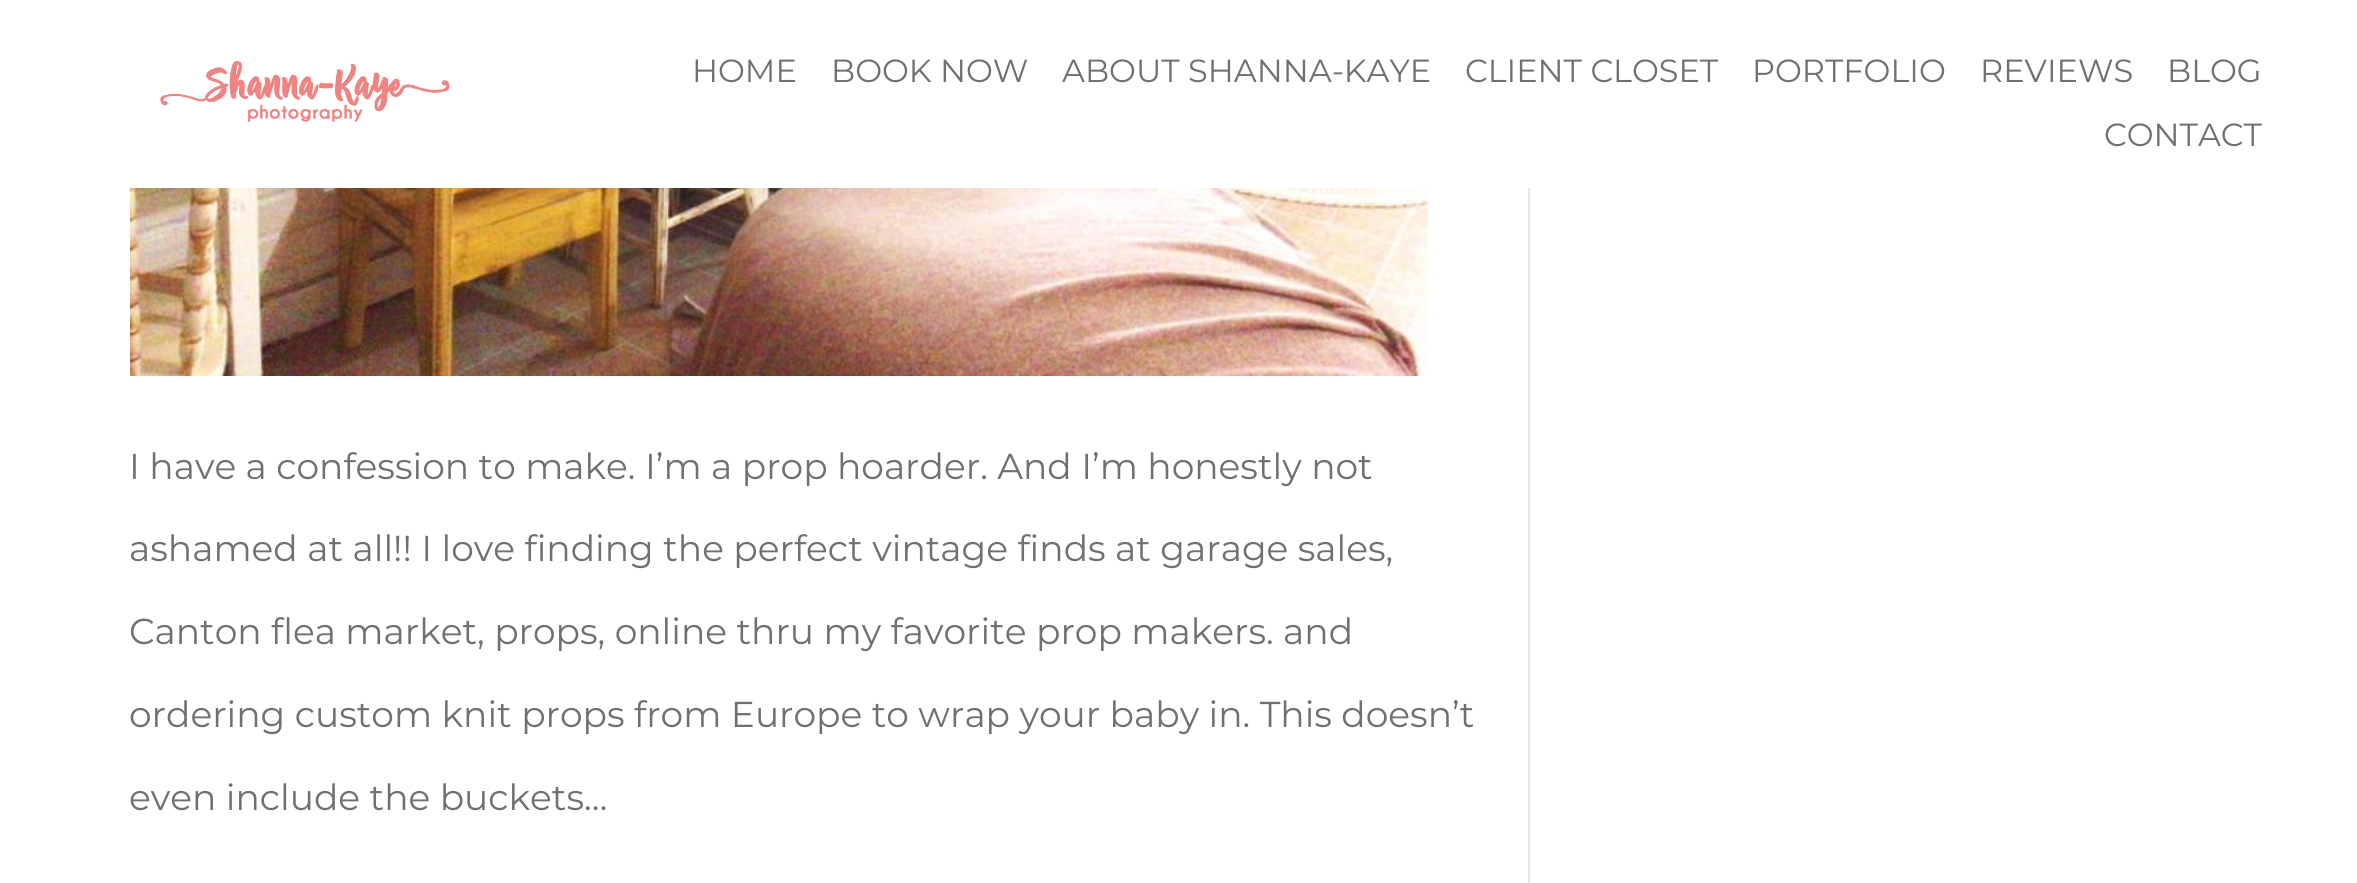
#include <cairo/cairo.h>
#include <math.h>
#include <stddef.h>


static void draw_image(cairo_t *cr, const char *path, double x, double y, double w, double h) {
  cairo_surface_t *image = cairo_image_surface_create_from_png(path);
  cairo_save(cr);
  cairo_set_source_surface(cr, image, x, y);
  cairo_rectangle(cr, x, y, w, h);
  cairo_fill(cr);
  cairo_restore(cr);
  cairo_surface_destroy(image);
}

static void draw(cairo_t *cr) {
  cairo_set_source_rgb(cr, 1, 1, 1);
  cairo_paint(cr);
  draw_image(cr, "images/1.png", 160, 61, 290, 61);
  cairo_set_source_rgb(cr, 230 / 255.0, 230 / 255.0, 230 / 255.0);
  cairo_rectangle(cr, 1528, 188, 2, 695);
  cairo_fill(cr);
  draw_image(cr, "images/2.png", 130, 188, 1298, 188);
  cairo_select_font_face(cr, "Montserrat", CAIRO_FONT_SLANT_NORMAL, CAIRO_FONT_WEIGHT_NORMAL);
  cairo_set_font_size(cr, 32);
  cairo_set_source_rgb(cr, 112 / 255.0, 112 / 255.0, 112 / 255.0);
  cairo_move_to(cr, 692, 82);
  cairo_show_text(cr, "HOME");
  cairo_move_to(cr, 831, 82);
  cairo_show_text(cr, "BOOK NOW");
  cairo_move_to(cr, 1062, 82);
  cairo_show_text(cr, "ABOUT SHANNA-KAYE");
  cairo_move_to(cr, 1465, 82);
  cairo_show_text(cr, "CLIENT CLOSET");
  cairo_move_to(cr, 1752, 82);
  cairo_show_text(cr, "PORTFOLIO");
  cairo_move_to(cr, 1980, 82);
  cairo_show_text(cr, "REVIEWS");
  cairo_move_to(cr, 2167, 82);
  cairo_show_text(cr, "BLOG");
  cairo_move_to(cr, 2104, 146);
  cairo_show_text(cr, "CONTACT");
  cairo_set_font_size(cr, 36);
  cairo_move_to(cr, 129, 479);
  cairo_show_text(cr, "I have a confession to make. I’m a prop hoarder. And I’m honestly not");
  cairo_move_to(cr, 129, 561);
  cairo_show_text(cr, "ashamed at all!! I love finding the perfect vintage finds at garage sales,");
  cairo_move_to(cr, 129, 644);
  cairo_show_text(cr, "Canton flea market, props, online thru my favorite prop makers. and");
  cairo_move_to(cr, 129, 727);
  cairo_show_text(cr, "ordering custom knit props from Europe to wrap your baby in. This doesn’t");
  cairo_move_to(cr, 129, 810);
  cairo_show_text(cr, "even include the buckets…");
}

int main(void) {
  cairo_surface_t *surface = cairo_image_surface_create(CAIRO_FORMAT_RGB24, 2357, 883);
  cairo_t *cr = cairo_create(surface);
  cairo_font_options_t *options = cairo_font_options_create();
  cairo_font_options_set_hint_metrics(options, CAIRO_HINT_METRICS_OFF);
  cairo_font_options_set_hint_style(options, CAIRO_HINT_STYLE_NONE);
  cairo_set_font_options(cr, options);
  cairo_set_miter_limit(cr, 4);
  draw(cr);
  cairo_surface_write_to_png(surface, "out.png");
  cairo_font_options_destroy(options);
  cairo_destroy(cr);
  cairo_surface_destroy(surface);
  return 0;
}
